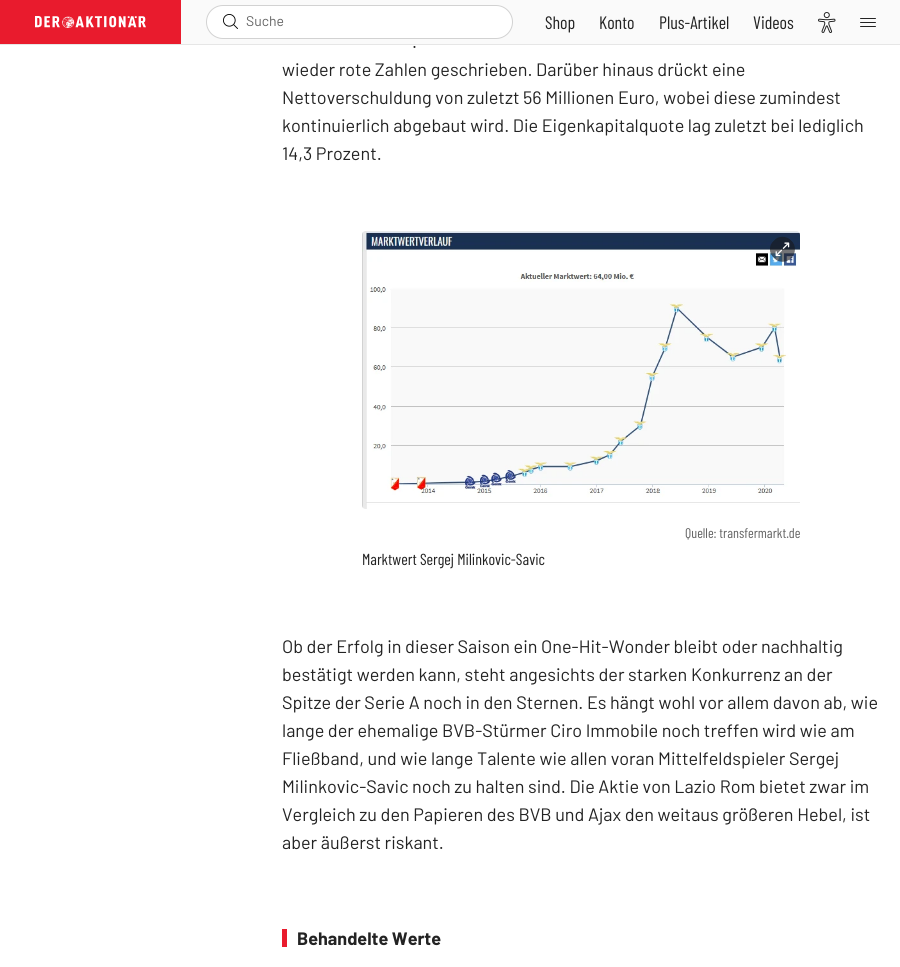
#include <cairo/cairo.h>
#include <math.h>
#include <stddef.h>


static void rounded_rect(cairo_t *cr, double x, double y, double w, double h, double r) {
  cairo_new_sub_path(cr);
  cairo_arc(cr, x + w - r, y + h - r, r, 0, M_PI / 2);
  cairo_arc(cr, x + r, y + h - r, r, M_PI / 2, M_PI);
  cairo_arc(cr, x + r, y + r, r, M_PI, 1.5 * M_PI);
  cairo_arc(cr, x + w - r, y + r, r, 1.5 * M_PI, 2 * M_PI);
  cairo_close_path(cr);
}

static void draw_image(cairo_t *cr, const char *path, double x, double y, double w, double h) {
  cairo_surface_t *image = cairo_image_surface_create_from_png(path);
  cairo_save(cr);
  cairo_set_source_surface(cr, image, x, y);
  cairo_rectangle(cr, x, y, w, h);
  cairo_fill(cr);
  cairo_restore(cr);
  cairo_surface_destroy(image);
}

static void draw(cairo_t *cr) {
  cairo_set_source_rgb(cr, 1, 1, 1);
  cairo_paint(cr);
  cairo_set_source_rgb(cr, 250 / 255.0, 250 / 255.0, 250 / 255.0);
  cairo_rectangle(cr, 181, 0, 719, 44);
  cairo_fill(cr);
  cairo_set_source_rgb(cr, 230 / 255.0, 230 / 255.0, 230 / 255.0);
  cairo_rectangle(cr, 0, 44, 900, 1);
  cairo_fill(cr);
  cairo_set_source_rgb(cr, 233 / 255.0, 27 / 255.0, 45 / 255.0);
  cairo_rectangle(cr, 0, 0, 181, 44);
  cairo_fill(cr);
  draw_image(cr, "images/1.png", 35, 16, 111, 12);
  cairo_set_source_rgb(cr, 1, 1, 1);
  rounded_rect(cr, 206.5, 5.5, 306, 33, 16.5);
  cairo_fill_preserve(cr);
  cairo_set_source_rgb(cr, 210 / 255.0, 210 / 255.0, 210 / 255.0);
  cairo_set_line_width(cr, 1);
  cairo_stroke(cr);
  draw_image(cr, "images/2.png", 223, 14, 15, 15);
  draw_image(cr, "images/3.png", 818, 12, 18, 21);
  cairo_set_source_rgb(cr, 35 / 255.0, 35 / 255.0, 35 / 255.0);
  rounded_rect(cr, 860, 22, 16, 1, 0.5);
  cairo_fill(cr);
  rounded_rect(cr, 860, 18, 16, 1, 0.5);
  cairo_fill(cr);
  rounded_rect(cr, 860, 26, 16, 1, 0.5);
  cairo_fill(cr);
  draw_image(cr, "images/4.png", 362, 231, 438, 278);
  draw_image(cr, "images/5.png", 770, 236, 25, 26);
  cairo_set_source_rgb(cr, 233 / 255.0, 27 / 255.0, 45 / 255.0);
  cairo_rectangle(cr, 282, 929, 5, 18);
  cairo_fill(cr);
  cairo_select_font_face(cr, "Barlow", CAIRO_FONT_SLANT_NORMAL, CAIRO_FONT_WEIGHT_NORMAL);
  cairo_set_font_size(cr, 14);
  cairo_set_source_rgb(cr, 100 / 255.0, 100 / 255.0, 100 / 255.0);
  cairo_move_to(cr, 246, 26);
  cairo_show_text(cr, "Suche");
  cairo_select_font_face(cr, "Barlow Condensed", CAIRO_FONT_SLANT_NORMAL, CAIRO_FONT_WEIGHT_NORMAL);
  cairo_set_font_size(cr, 18);
  cairo_set_source_rgb(cr, 35 / 255.0, 35 / 255.0, 35 / 255.0);
  cairo_move_to(cr, 545, 29);
  cairo_show_text(cr, "Shop");
  cairo_move_to(cr, 599, 29);
  cairo_show_text(cr, "Konto");
  cairo_move_to(cr, 659, 29);
  cairo_show_text(cr, "Plus-Artikel");
  cairo_move_to(cr, 753, 29);
  cairo_show_text(cr, "Videos");
  cairo_select_font_face(cr, "Barlow", CAIRO_FONT_SLANT_NORMAL, CAIRO_FONT_WEIGHT_NORMAL);
  cairo_move_to(cr, 412, 48);
  cairo_show_text(cr, ".");
  cairo_move_to(cr, 282, 76);
  cairo_show_text(cr, "wieder rote Zahlen geschrieben. Darüber hinaus drückt eine");
  cairo_move_to(cr, 282, 104);
  cairo_show_text(cr, "Nettoverschuldung von zuletzt 56 Millionen Euro, wobei diese zumindest");
  cairo_move_to(cr, 282, 132);
  cairo_show_text(cr, "kontinuierlich abgebaut wird. Die Eigenkapitalquote lag zuletzt bei lediglich");
  cairo_move_to(cr, 282, 160);
  cairo_show_text(cr, "14,3 Prozent.");
  cairo_select_font_face(cr, "Barlow Condensed", CAIRO_FONT_SLANT_NORMAL, CAIRO_FONT_WEIGHT_NORMAL);
  cairo_set_font_size(cr, 14);
  cairo_set_source_rgb(cr, 100 / 255.0, 100 / 255.0, 100 / 255.0);
  cairo_move_to(cr, 685, 538);
  cairo_show_text(cr, "Quelle: transfermarkt.de");
  cairo_set_font_size(cr, 16);
  cairo_set_source_rgb(cr, 35 / 255.0, 35 / 255.0, 35 / 255.0);
  cairo_move_to(cr, 362, 565);
  cairo_show_text(cr, "Marktwert Sergej Milinkovic-Savic");
  cairo_select_font_face(cr, "Barlow", CAIRO_FONT_SLANT_NORMAL, CAIRO_FONT_WEIGHT_NORMAL);
  cairo_set_font_size(cr, 18);
  cairo_move_to(cr, 282, 653);
  cairo_show_text(cr, "Ob der Erfolg in dieser Saison ein One-Hit-Wonder bleibt oder nachhaltig");
  cairo_move_to(cr, 282, 681);
  cairo_show_text(cr, "bestätigt werden kann, steht angesichts der starken Konkurrenz an der");
  cairo_move_to(cr, 282, 709);
  cairo_show_text(cr, "Spitze der Serie A noch in den Sternen. Es hängt wohl vor allem davon ab, wie");
  cairo_move_to(cr, 282, 737);
  cairo_show_text(cr, "lange der ehemalige BVB-Stürmer Ciro Immobile noch treffen wird wie am");
  cairo_move_to(cr, 282, 765);
  cairo_show_text(cr, "Fließband, und wie lange Talente wie allen voran Mittelfeldspieler Sergej");
  cairo_move_to(cr, 282, 793);
  cairo_show_text(cr, "Milinkovic-Savic noch zu halten sind. Die Aktie von Lazio Rom bietet zwar im");
  cairo_move_to(cr, 282, 821);
  cairo_show_text(cr, "Vergleich zu den Papieren des BVB und Ajax den weitaus größeren Hebel, ist");
  cairo_move_to(cr, 282, 849);
  cairo_show_text(cr, "aber äußerst riskant.");
  cairo_select_font_face(cr, "Barlow", CAIRO_FONT_SLANT_NORMAL, CAIRO_FONT_WEIGHT_BOLD);
  cairo_move_to(cr, 297, 945);
  cairo_show_text(cr, "Behandelte Werte");
}

int main(void) {
  cairo_surface_t *surface = cairo_image_surface_create(CAIRO_FORMAT_RGB24, 900, 967);
  cairo_t *cr = cairo_create(surface);
  cairo_font_options_t *options = cairo_font_options_create();
  cairo_font_options_set_hint_metrics(options, CAIRO_HINT_METRICS_OFF);
  cairo_font_options_set_hint_style(options, CAIRO_HINT_STYLE_NONE);
  cairo_set_font_options(cr, options);
  cairo_set_miter_limit(cr, 4);
  draw(cr);
  cairo_surface_write_to_png(surface, "out.png");
  cairo_font_options_destroy(options);
  cairo_destroy(cr);
  cairo_surface_destroy(surface);
  return 0;
}
